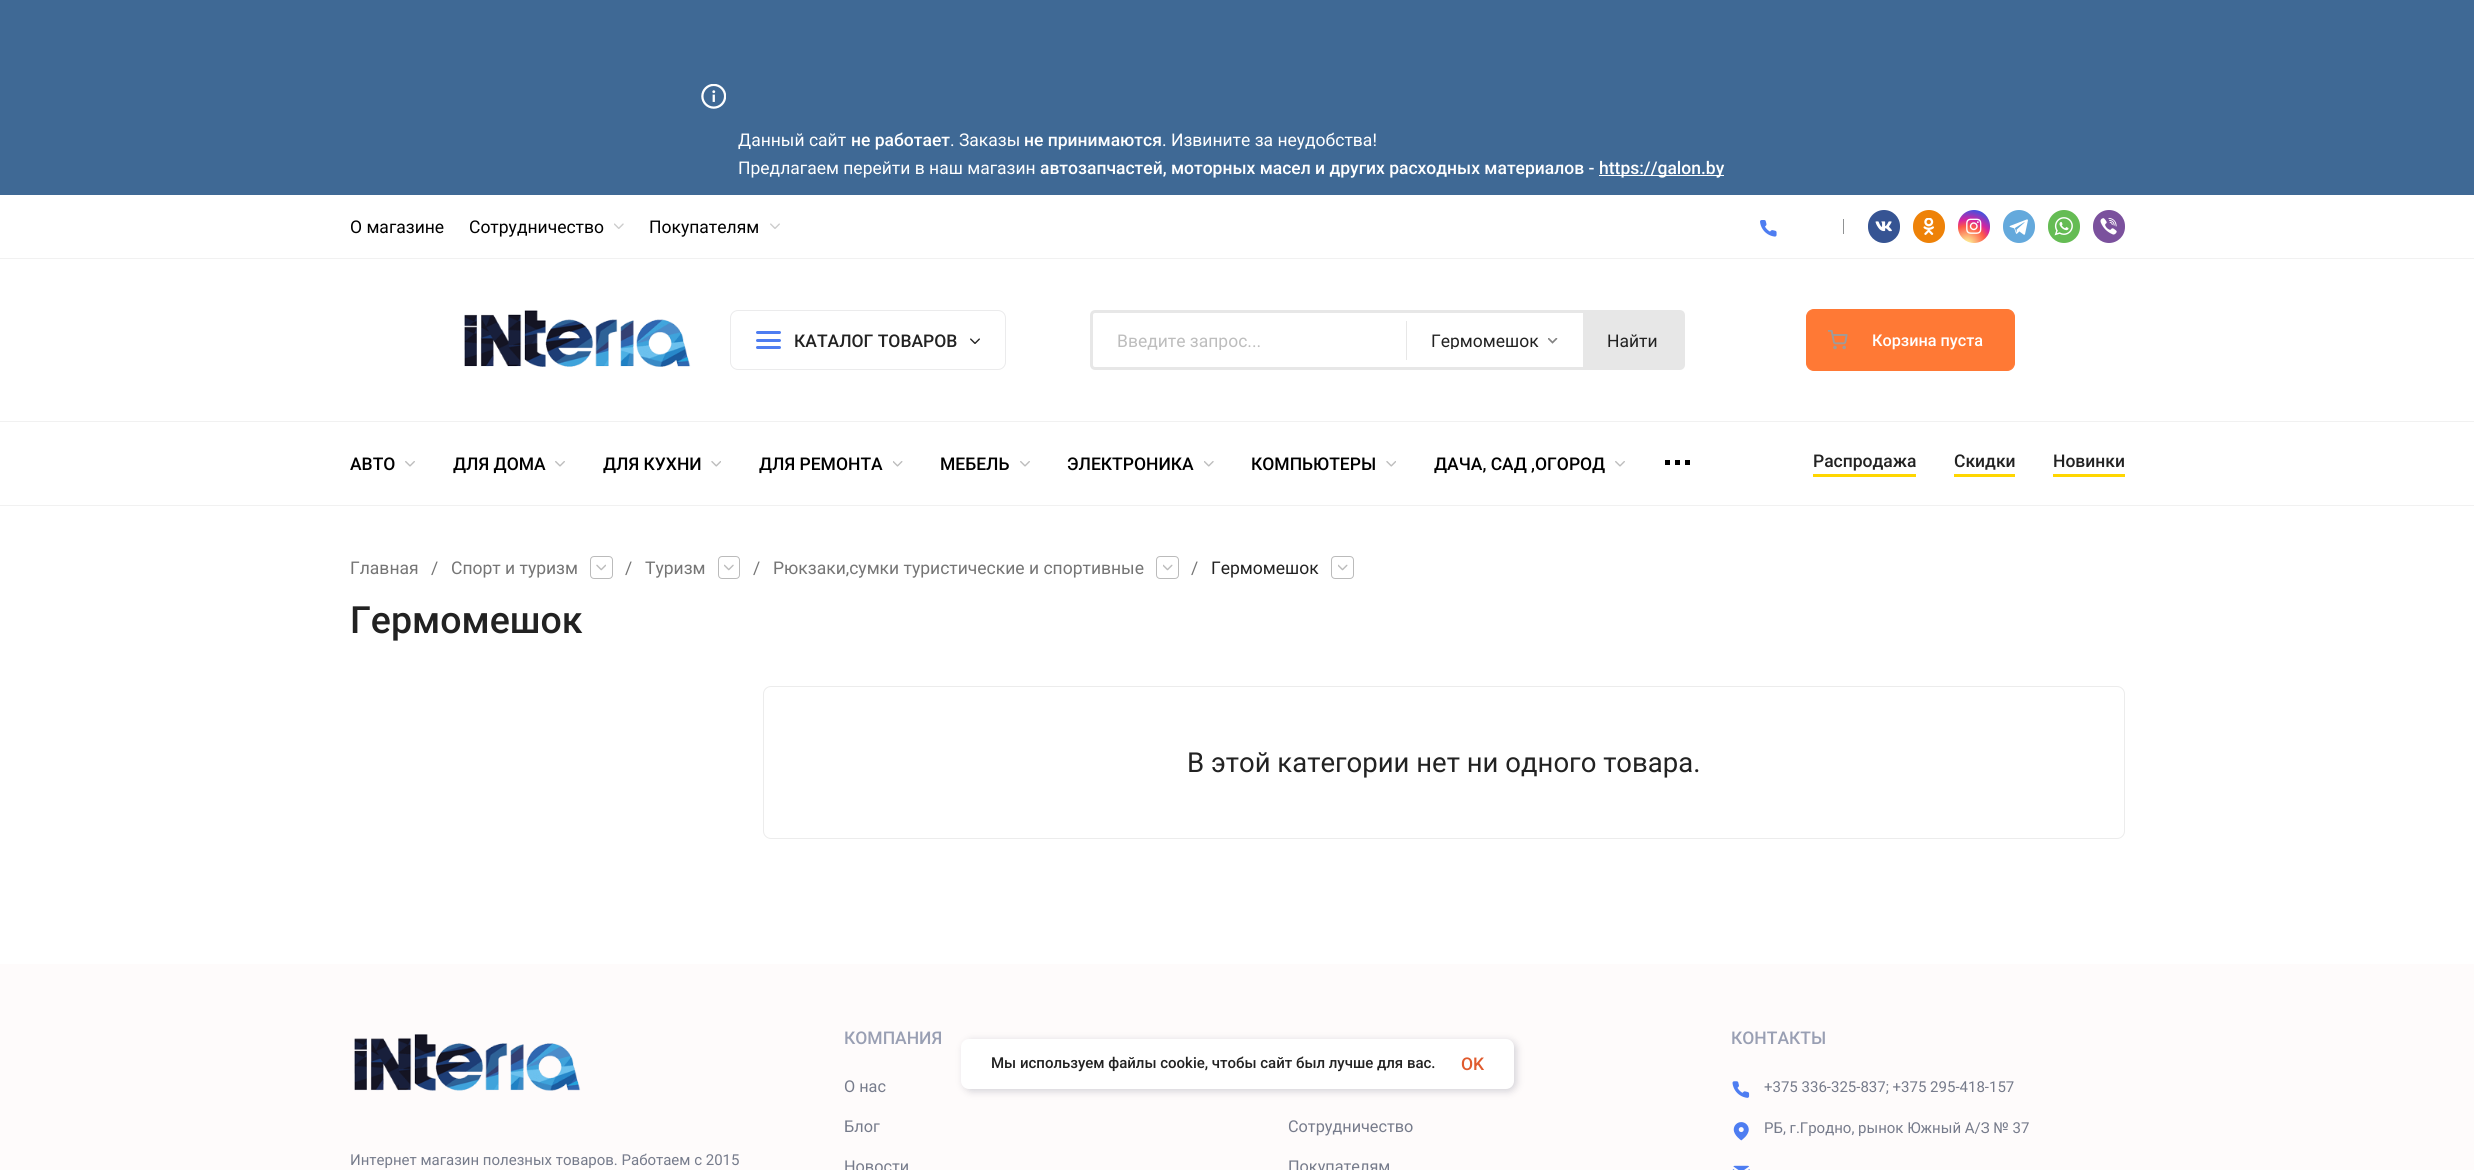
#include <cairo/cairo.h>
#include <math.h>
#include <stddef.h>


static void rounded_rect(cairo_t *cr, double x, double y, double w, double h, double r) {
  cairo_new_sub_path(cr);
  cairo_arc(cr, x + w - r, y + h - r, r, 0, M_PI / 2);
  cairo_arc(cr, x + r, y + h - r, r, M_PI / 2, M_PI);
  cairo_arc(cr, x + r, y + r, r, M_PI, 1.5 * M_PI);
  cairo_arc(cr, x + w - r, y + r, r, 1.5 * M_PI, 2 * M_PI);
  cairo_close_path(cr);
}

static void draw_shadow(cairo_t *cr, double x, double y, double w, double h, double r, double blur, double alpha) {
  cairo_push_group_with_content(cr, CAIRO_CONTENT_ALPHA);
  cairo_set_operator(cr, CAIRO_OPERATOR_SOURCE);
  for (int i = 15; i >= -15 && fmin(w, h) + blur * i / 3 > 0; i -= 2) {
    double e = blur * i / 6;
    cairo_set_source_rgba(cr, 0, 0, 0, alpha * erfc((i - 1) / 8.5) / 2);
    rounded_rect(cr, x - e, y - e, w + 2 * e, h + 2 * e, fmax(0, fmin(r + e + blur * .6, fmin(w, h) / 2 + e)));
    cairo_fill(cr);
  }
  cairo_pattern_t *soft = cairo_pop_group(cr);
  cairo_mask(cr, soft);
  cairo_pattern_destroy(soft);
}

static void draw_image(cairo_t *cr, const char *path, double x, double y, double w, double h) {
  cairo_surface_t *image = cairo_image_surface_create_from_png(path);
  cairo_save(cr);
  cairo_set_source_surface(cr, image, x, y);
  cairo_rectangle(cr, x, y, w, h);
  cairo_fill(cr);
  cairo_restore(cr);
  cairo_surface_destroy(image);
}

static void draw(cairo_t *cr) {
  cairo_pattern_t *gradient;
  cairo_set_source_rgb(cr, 1, 1, 1);
  cairo_paint(cr);
  cairo_set_source_rgb(cr, 63 / 255.0, 105 / 255.0, 149 / 255.0);
  cairo_rectangle(cr, 0, 0, 2474, 195);
  cairo_fill(cr);
  draw_image(cr, "images/1.png", 701, 84, 25, 25);
  cairo_set_source_rgb(cr, 1, 1, 1);
  cairo_rectangle(cr, 1599, 175, 125, 1);
  cairo_fill(cr);
  cairo_set_source_rgb(cr, 241 / 255.0, 241 / 255.0, 241 / 255.0);
  cairo_rectangle(cr, 0, 258, 2474, 1);
  cairo_fill(cr);
  draw_image(cr, "images/2.png", 614, 223, 10, 6);
  draw_image(cr, "images/3.png", 770, 223, 10, 6);
  draw_image(cr, "images/4.png", 1760, 220, 17, 17);
  cairo_set_source_rgb(cr, 144 / 255.0, 146 / 255.0, 148 / 255.0);
  cairo_rectangle(cr, 1843, 219, 1, 15);
  cairo_fill(cr);
  cairo_set_source_rgb(cr, 54 / 255.0, 84 / 255.0, 147 / 255.0);
  rounded_rect(cr, 1868, 210, 32, 33, 16);
  cairo_fill(cr);
  draw_image(cr, "images/5.png", 1875, 221, 17, 11);
  cairo_set_source_rgb(cr, 238 / 255.0, 130 / 255.0, 8 / 255.0);
  rounded_rect(cr, 1913, 210, 32, 33, 16);
  cairo_fill(cr);
  draw_image(cr, "images/6.png", 1923, 218, 11, 17);
  gradient = cairo_pattern_create_radial(1967, 245, 0, 1967, 245, 42);
  cairo_pattern_add_color_stop_rgba(gradient, 0, 253 / 255.0, 244 / 255.0, 151 / 255.0, 1);
  cairo_pattern_add_color_stop_rgba(gradient, 0.05, 253 / 255.0, 244 / 255.0, 151 / 255.0, 1);
  cairo_pattern_add_color_stop_rgba(gradient, 0.45, 253 / 255.0, 89 / 255.0, 73 / 255.0, 1);
  cairo_pattern_add_color_stop_rgba(gradient, 0.6, 214 / 255.0, 36 / 255.0, 159 / 255.0, 1);
  cairo_pattern_add_color_stop_rgba(gradient, 0.9, 40 / 255.0, 90 / 255.0, 235 / 255.0, 1);
  cairo_set_source(cr, gradient);
  cairo_pattern_destroy(gradient);
  rounded_rect(cr, 1958, 210, 32, 33, 16);
  cairo_fill(cr);
  draw_image(cr, "images/7.png", 1966, 218, 16, 16);
  cairo_set_source_rgb(cr, 100 / 255.0, 169 / 255.0, 220 / 255.0);
  rounded_rect(cr, 2003, 210, 32, 33, 16);
  cairo_fill(cr);
  draw_image(cr, "images/8.png", 2009, 219, 19, 16);
  cairo_set_source_rgb(cr, 101 / 255.0, 188 / 255.0, 84 / 255.0);
  rounded_rect(cr, 2048, 210, 32, 33, 16);
  cairo_fill(cr);
  draw_image(cr, "images/9.png", 2054, 217, 19, 19);
  cairo_set_source_rgb(cr, 123 / 255.0, 81 / 255.0, 157 / 255.0);
  rounded_rect(cr, 2093, 210, 32, 33, 16);
  cairo_fill(cr);
  draw_image(cr, "images/10.png", 2100, 217, 17, 18);
  cairo_set_source_rgb(cr, 241 / 255.0, 241 / 255.0, 241 / 255.0);
  cairo_rectangle(cr, 0, 421, 2474, 1);
  cairo_fill(cr);
  draw_image(cr, "images/11.png", 464, 310, 227, 57);
  rounded_rect(cr, 730.5, 310.5, 275, 59, 7.5);
  cairo_set_source_rgb(cr, 235 / 255.0, 235 / 255.0, 236 / 255.0);
  cairo_set_line_width(cr, 1);
  cairo_stroke(cr);
  cairo_set_source_rgb(cr, 78 / 255.0, 125 / 255.0, 241 / 255.0);
  rounded_rect(cr, 756, 339, 25, 3, 1.5);
  cairo_fill(cr);
  rounded_rect(cr, 756, 331, 25, 3, 1.5);
  cairo_fill(cr);
  rounded_rect(cr, 756, 346, 25, 3, 1.5);
  cairo_fill(cr);
  draw_image(cr, "images/12.png", 970, 338, 10, 6);
  rounded_rect(cr, 1091.5, 311.5, 592, 57, 3.5);
  cairo_set_source_rgb(cr, 231 / 255.0, 231 / 255.0, 231 / 255.0);
  cairo_set_line_width(cr, 3);
  cairo_stroke(cr);
  cairo_rectangle(cr, 1406, 321, 1, 39);
  cairo_fill(cr);
  draw_image(cr, "images/13.png", 1548, 338, 10, 6);
  cairo_rectangle(cr, 1583, 313, 99, 54);
  cairo_fill(cr);
  cairo_set_source_rgb(cr, 1, 121 / 255.0, 53 / 255.0);
  rounded_rect(cr, 1806.5, 309.5, 208, 61, 7.5);
  cairo_fill_preserve(cr);
  cairo_set_line_width(cr, 1);
  cairo_stroke(cr);
  draw_image(cr, "images/14.png", 1828, 330, 20, 20);
  cairo_set_source_rgb(cr, 241 / 255.0, 241 / 255.0, 241 / 255.0);
  cairo_rectangle(cr, 0, 505, 2474, 1);
  cairo_fill(cr);
  draw_image(cr, "images/15.png", 405, 461, 10, 6);
  draw_image(cr, "images/15.png", 555, 461, 10, 6);
  draw_image(cr, "images/16.png", 711, 461, 10, 6);
  draw_image(cr, "images/17.png", 893, 461, 10, 6);
  draw_image(cr, "images/15.png", 1020, 461, 10, 6);
  draw_image(cr, "images/18.png", 1204, 461, 10, 6);
  draw_image(cr, "images/16.png", 1386, 461, 10, 6);
  draw_image(cr, "images/15.png", 1615, 461, 10, 6);
  cairo_set_source_rgb(cr, 0, 0, 0);
  cairo_rectangle(cr, 1665, 460, 5, 5);
  cairo_fill(cr);
  cairo_rectangle(cr, 1675, 460, 5, 5);
  cairo_fill(cr);
  cairo_rectangle(cr, 1685, 460, 5, 5);
  cairo_fill(cr);
  cairo_set_source_rgb(cr, 1, 214 / 255.0, 0);
  cairo_rectangle(cr, 1813, 474, 103, 3);
  cairo_fill(cr);
  cairo_rectangle(cr, 1954, 474, 61, 3);
  cairo_fill(cr);
  cairo_rectangle(cr, 2053, 474, 72, 3);
  cairo_fill(cr);
  rounded_rect(cr, 590.5, 556.5, 22, 22, 3.5);
  cairo_set_source_rgb(cr, 187 / 255.0, 187 / 255.0, 187 / 255.0);
  cairo_stroke(cr);
  draw_image(cr, "images/19.png", 596, 564, 10, 7);
  rounded_rect(cr, 718.5, 556.5, 21, 22, 3.5);
  cairo_stroke(cr);
  draw_image(cr, "images/20.png", 724, 564, 10, 7);
  rounded_rect(cr, 1156.5, 556.5, 22, 22, 3.5);
  cairo_stroke(cr);
  draw_image(cr, "images/21.png", 1163, 564, 10, 7);
  rounded_rect(cr, 1331.5, 556.5, 22, 22, 3.5);
  cairo_stroke(cr);
  draw_image(cr, "images/21.png", 1338, 564, 10, 7);
  rounded_rect(cr, 763.5, 686.5, 1361, 152, 7.5);
  cairo_set_source_rgb(cr, 236 / 255.0, 236 / 255.0, 236 / 255.0);
  cairo_stroke(cr);
  cairo_set_source_rgb(cr, 254 / 255.0, 251 / 255.0, 251 / 255.0);
  cairo_rectangle(cr, 0, 964, 2474, 206);
  cairo_fill(cr);
  draw_image(cr, "images/22.png", 1732, 1081, 18, 17);
  draw_image(cr, "images/23.png", 1733, 1122, 16, 19);
  draw_image(cr, "images/24.png", 1732, 1165, 18, 5);
  draw_image(cr, "images/25.png", 354, 1034, 227, 57);
  cairo_set_source_rgb(cr, 100 / 255.0, 100 / 255.0, 120 / 255.0);
  draw_shadow(cr, 964, 1041, 552, 50, 8, 4, 0.3);
  cairo_set_source_rgb(cr, 1, 1, 1);
  rounded_rect(cr, 961, 1039, 553, 50, 8);
  cairo_fill(cr);
  cairo_select_font_face(cr, "Roboto", CAIRO_FONT_SLANT_NORMAL, CAIRO_FONT_WEIGHT_NORMAL);
  cairo_set_font_size(cr, 17.5);
  cairo_move_to(cr, 738, 146);
  cairo_show_text(cr, "Данный сайт");
  cairo_select_font_face(cr, "Roboto Medium", CAIRO_FONT_SLANT_NORMAL, CAIRO_FONT_WEIGHT_NORMAL);
  cairo_move_to(cr, 851, 146);
  cairo_show_text(cr, "не работает");
  cairo_select_font_face(cr, "Roboto", CAIRO_FONT_SLANT_NORMAL, CAIRO_FONT_WEIGHT_NORMAL);
  cairo_move_to(cr, 950, 146);
  cairo_show_text(cr, ". Заказы");
  cairo_select_font_face(cr, "Roboto Medium", CAIRO_FONT_SLANT_NORMAL, CAIRO_FONT_WEIGHT_NORMAL);
  cairo_move_to(cr, 1024, 146);
  cairo_show_text(cr, "не принимаются");
  cairo_select_font_face(cr, "Roboto", CAIRO_FONT_SLANT_NORMAL, CAIRO_FONT_WEIGHT_NORMAL);
  cairo_move_to(cr, 1162, 146);
  cairo_show_text(cr, ". Извините за неудобства!");
  cairo_move_to(cr, 738, 174);
  cairo_show_text(cr, "Предлагаем перейти в наш магазин");
  cairo_select_font_face(cr, "Roboto Medium", CAIRO_FONT_SLANT_NORMAL, CAIRO_FONT_WEIGHT_NORMAL);
  cairo_move_to(cr, 1040, 174);
  cairo_show_text(cr, "автозапчастей, моторных масел и других расходных материалов -");
  cairo_move_to(cr, 1599, 174);
  cairo_show_text(cr, "https://galon.by");
  cairo_select_font_face(cr, "Roboto", CAIRO_FONT_SLANT_NORMAL, CAIRO_FONT_WEIGHT_NORMAL);
  cairo_set_source_rgb(cr, 0, 0, 0);
  cairo_move_to(cr, 350, 233);
  cairo_show_text(cr, "О магазине");
  cairo_move_to(cr, 469, 233);
  cairo_show_text(cr, "Сотрудничество");
  cairo_move_to(cr, 649, 233);
  cairo_show_text(cr, "Покупателям");
  cairo_select_font_face(cr, "Roboto Medium", CAIRO_FONT_SLANT_NORMAL, CAIRO_FONT_WEIGHT_NORMAL);
  cairo_set_source_rgb(cr, 34 / 255.0, 34 / 255.0, 34 / 255.0);
  cairo_move_to(cr, 794, 347);
  cairo_show_text(cr, "КАТАЛОГ ТОВАРОВ");
  cairo_save(cr);
  cairo_rectangle(cr, 1118, 330, 226, 20);
  cairo_clip(cr);
  cairo_select_font_face(cr, "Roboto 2", CAIRO_FONT_SLANT_NORMAL, CAIRO_FONT_WEIGHT_NORMAL);
  cairo_set_source_rgb(cr, 189 / 255.0, 189 / 255.0, 189 / 255.0);
  cairo_move_to(cr, 1117, 347);
  cairo_show_text(cr, "Введите запрос...");
  cairo_restore(cr);
  cairo_save(cr);
  cairo_rectangle(cr, 1431, 331, 108, 18);
  cairo_clip(cr);
  cairo_select_font_face(cr, "Roboto 2", CAIRO_FONT_SLANT_NORMAL, CAIRO_FONT_WEIGHT_NORMAL);
  cairo_move_to(cr, 1431, 347);
  cairo_show_text(cr, "Гермомешок");
  cairo_restore(cr);
  cairo_select_font_face(cr, "Roboto 2", CAIRO_FONT_SLANT_NORMAL, CAIRO_FONT_WEIGHT_NORMAL);
  cairo_move_to(cr, 1607, 347);
  cairo_show_text(cr, "Найти");
  cairo_select_font_face(cr, "Roboto Medium", CAIRO_FONT_SLANT_NORMAL, CAIRO_FONT_WEIGHT_NORMAL);
  cairo_set_font_size(cr, 16.25);
  cairo_set_source_rgb(cr, 1, 1, 1);
  cairo_move_to(cr, 1872, 346);
  cairo_show_text(cr, "Корзина пуста");
  cairo_set_font_size(cr, 17.5);
  cairo_set_source_rgb(cr, 0, 0, 0);
  cairo_move_to(cr, 350, 470);
  cairo_show_text(cr, "АВТО");
  cairo_move_to(cr, 453, 470);
  cairo_show_text(cr, "ДЛЯ ДОМА");
  cairo_move_to(cr, 603, 470);
  cairo_show_text(cr, "ДЛЯ КУХНИ");
  cairo_move_to(cr, 759, 470);
  cairo_show_text(cr, "ДЛЯ РЕМОНТА");
  cairo_move_to(cr, 940, 470);
  cairo_show_text(cr, "МЕБЕЛЬ");
  cairo_move_to(cr, 1067, 470);
  cairo_show_text(cr, "ЭЛЕКТРОНИКА");
  cairo_move_to(cr, 1251, 470);
  cairo_show_text(cr, "КОМПЬЮТЕРЫ");
  cairo_move_to(cr, 1434, 470);
  cairo_show_text(cr, "ДАЧА, САД ,ОГОРОД");
  cairo_set_source_rgb(cr, 34 / 255.0, 34 / 255.0, 34 / 255.0);
  cairo_move_to(cr, 1813, 467);
  cairo_show_text(cr, "Распродажа");
  cairo_move_to(cr, 1954, 467);
  cairo_show_text(cr, "Скидки");
  cairo_move_to(cr, 2053, 467);
  cairo_show_text(cr, "Новинки");
  cairo_select_font_face(cr, "Roboto", CAIRO_FONT_SLANT_NORMAL, CAIRO_FONT_WEIGHT_NORMAL);
  cairo_set_source_rgb(cr, 117 / 255.0, 117 / 255.0, 117 / 255.0);
  cairo_move_to(cr, 350, 574);
  cairo_show_text(cr, "Главная");
  cairo_move_to(cr, 431, 574);
  cairo_show_text(cr, "/");
  cairo_move_to(cr, 451, 574);
  cairo_show_text(cr, "Спорт и туризм");
  cairo_move_to(cr, 625, 574);
  cairo_show_text(cr, "/");
  cairo_move_to(cr, 645, 574);
  cairo_show_text(cr, "Туризм");
  cairo_move_to(cr, 753, 574);
  cairo_show_text(cr, "/");
  cairo_move_to(cr, 773, 574);
  cairo_show_text(cr, "Рюкзаки,сумки туристические и спортивные");
  cairo_move_to(cr, 1191, 574);
  cairo_show_text(cr, "/");
  cairo_set_source_rgb(cr, 34 / 255.0, 34 / 255.0, 34 / 255.0);
  cairo_move_to(cr, 1211, 574);
  cairo_show_text(cr, "Гермомешок");
  cairo_select_font_face(cr, "Roboto Medium", CAIRO_FONT_SLANT_NORMAL, CAIRO_FONT_WEIGHT_NORMAL);
  cairo_set_font_size(cr, 37.5);
  cairo_move_to(cr, 350, 633);
  cairo_show_text(cr, "Гермомешок");
  cairo_select_font_face(cr, "Roboto", CAIRO_FONT_SLANT_NORMAL, CAIRO_FONT_WEIGHT_NORMAL);
  cairo_set_font_size(cr, 27.5);
  cairo_move_to(cr, 1187, 772);
  cairo_show_text(cr, "В этой категории нет ни одного товара.");
  cairo_select_font_face(cr, "Roboto Medium", CAIRO_FONT_SLANT_NORMAL, CAIRO_FONT_WEIGHT_NORMAL);
  cairo_set_font_size(cr, 17.5);
  cairo_set_source_rgb(cr, 153 / 255.0, 159 / 255.0, 179 / 255.0);
  cairo_move_to(cr, 844, 1044);
  cairo_show_text(cr, "КОМПАНИЯ");
  cairo_select_font_face(cr, "Roboto", CAIRO_FONT_SLANT_NORMAL, CAIRO_FONT_WEIGHT_NORMAL);
  cairo_set_font_size(cr, 16.25);
  cairo_set_source_rgb(cr, 118 / 255.0, 123 / 255.0, 139 / 255.0);
  cairo_move_to(cr, 844, 1092);
  cairo_show_text(cr, "О нас");
  cairo_move_to(cr, 844, 1132);
  cairo_show_text(cr, "Блог");
  cairo_move_to(cr, 844, 1172);
  cairo_show_text(cr, "Новости");
  cairo_select_font_face(cr, "Roboto Medium", CAIRO_FONT_SLANT_NORMAL, CAIRO_FONT_WEIGHT_NORMAL);
  cairo_set_font_size(cr, 17.5);
  cairo_set_source_rgb(cr, 153 / 255.0, 159 / 255.0, 179 / 255.0);
  cairo_move_to(cr, 1731, 1044);
  cairo_show_text(cr, "КОНТАКТЫ");
  cairo_select_font_face(cr, "Roboto", CAIRO_FONT_SLANT_NORMAL, CAIRO_FONT_WEIGHT_NORMAL);
  cairo_set_font_size(cr, 15);
  cairo_set_source_rgb(cr, 118 / 255.0, 123 / 255.0, 139 / 255.0);
  cairo_move_to(cr, 1764, 1092);
  cairo_show_text(cr, "+375 336-325-837; +375 295-418-157");
  cairo_move_to(cr, 1764, 1133);
  cairo_show_text(cr, "РБ, г.Гродно, рынок Южный A/З № 37");
  cairo_move_to(cr, 350, 1165);
  cairo_show_text(cr, "Интернет магазин полезных товаров. Работаем с 2015");
  cairo_set_font_size(cr, 16.25);
  cairo_move_to(cr, 1288, 1132);
  cairo_show_text(cr, "Сотрудничество");
  cairo_move_to(cr, 1288, 1172);
  cairo_show_text(cr, "Покупателям");
  cairo_select_font_face(cr, "Roboto Medium", CAIRO_FONT_SLANT_NORMAL, CAIRO_FONT_WEIGHT_NORMAL);
  cairo_set_font_size(cr, 15);
  cairo_set_source_rgb(cr, 34 / 255.0, 34 / 255.0, 34 / 255.0);
  cairo_move_to(cr, 991, 1068);
  cairo_show_text(cr, "Мы используем файлы cookie, чтобы сайт был лучше для вас.");
  cairo_set_font_size(cr, 17.5);
  cairo_set_source_rgb(cr, 224 / 255.0, 90 / 255.0, 45 / 255.0);
  cairo_move_to(cr, 1461, 1070);
  cairo_show_text(cr, "OK");
}

int main(void) {
  cairo_surface_t *surface = cairo_image_surface_create(CAIRO_FORMAT_RGB24, 2474, 1170);
  cairo_t *cr = cairo_create(surface);
  cairo_font_options_t *options = cairo_font_options_create();
  cairo_font_options_set_hint_metrics(options, CAIRO_HINT_METRICS_OFF);
  cairo_font_options_set_hint_style(options, CAIRO_HINT_STYLE_NONE);
  cairo_set_font_options(cr, options);
  cairo_set_miter_limit(cr, 4);
  draw(cr);
  cairo_surface_write_to_png(surface, "out.png");
  cairo_font_options_destroy(options);
  cairo_destroy(cr);
  cairo_surface_destroy(surface);
  return 0;
}
